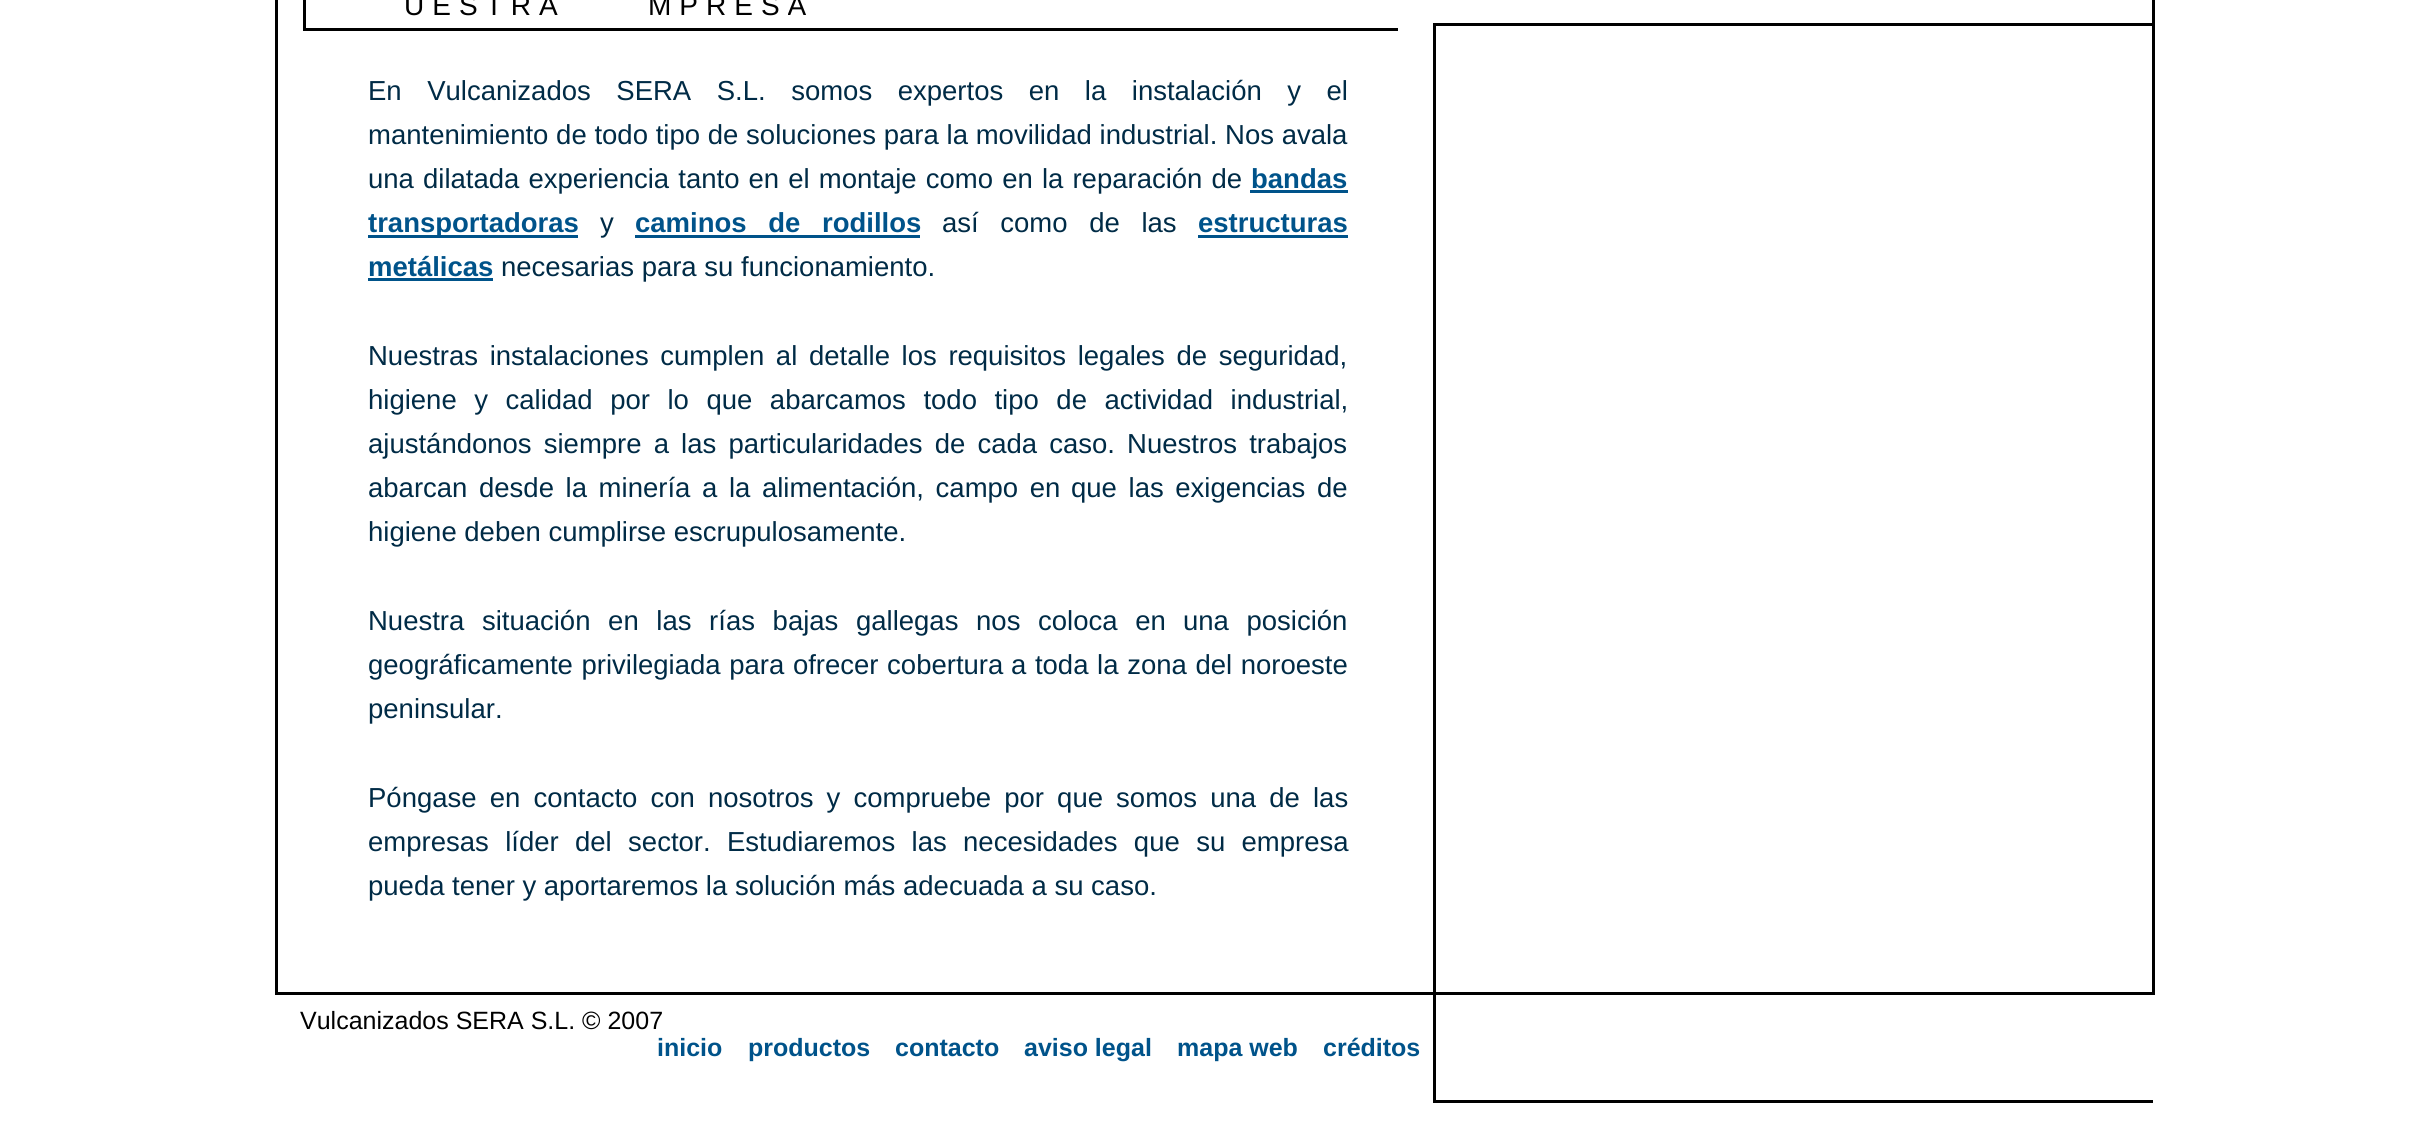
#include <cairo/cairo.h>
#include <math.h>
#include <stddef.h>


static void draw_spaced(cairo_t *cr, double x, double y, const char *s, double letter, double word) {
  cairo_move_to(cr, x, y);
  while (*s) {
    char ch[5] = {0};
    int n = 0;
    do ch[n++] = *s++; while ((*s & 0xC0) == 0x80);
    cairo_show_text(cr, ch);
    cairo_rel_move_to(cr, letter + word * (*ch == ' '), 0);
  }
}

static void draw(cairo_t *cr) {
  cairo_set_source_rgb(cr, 1, 1, 1);
  cairo_paint(cr);
  cairo_rectangle(cr, 276.5, -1.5, 1877, 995);
  cairo_set_source_rgb(cr, 0, 0, 0);
  cairo_set_line_width(cr, 3);
  cairo_stroke(cr);
  cairo_rectangle(cr, 303, 28, 1095, 3);
  cairo_fill(cr);
  cairo_rectangle(cr, 303, 0, 3, 30);
  cairo_fill(cr);
  cairo_set_source_rgb(cr, 0, 83 / 255.0, 138 / 255.0);
  cairo_rectangle(cr, 1250, 190, 98, 3);
  cairo_fill(cr);
  cairo_rectangle(cr, 368, 235, 210, 3);
  cairo_fill(cr);
  cairo_rectangle(cr, 635, 235, 285, 3);
  cairo_fill(cr);
  cairo_rectangle(cr, 1198, 235, 150, 3);
  cairo_fill(cr);
  cairo_rectangle(cr, 368, 278, 125, 3);
  cairo_fill(cr);
  cairo_set_source_rgb(cr, 0, 0, 0);
  cairo_rectangle(cr, 1433, 23, 720, 3);
  cairo_fill(cr);
  cairo_rectangle(cr, 1433, 1100, 720, 3);
  cairo_fill(cr);
  cairo_rectangle(cr, 1433, 23, 3, 1080);
  cairo_fill(cr);
  cairo_select_font_face(cr, "Liberation Sans", CAIRO_FONT_SLANT_NORMAL, CAIRO_FONT_WEIGHT_NORMAL);
  cairo_set_font_size(cr, 28);
  draw_spaced(cr, 404, 15, "UESTRA", 8, 0);
  draw_spaced(cr, 648, 15, "MPRESA", 8, 0);
  cairo_set_font_size(cr, 27.5);
  cairo_set_source_rgb(cr, 0, 43 / 255.0, 70 / 255.0);
  draw_spaced(cr, 368, 100, "En Vulcanizados SERA S.L. somos expertos en la instalación y el", 0, 17.9);
  draw_spaced(cr, 368, 144, "mantenimiento de todo tipo de soluciones para la movilidad industrial. Nos avala", 0, 0.1);
  draw_spaced(cr, 368, 188, "una dilatada experiencia tanto en el montaje como en la reparación de", 0, 1.5);
  cairo_select_font_face(cr, "Liberation Sans", CAIRO_FONT_SLANT_NORMAL, CAIRO_FONT_WEIGHT_BOLD);
  cairo_set_source_rgb(cr, 0, 83 / 255.0, 138 / 255.0);
  cairo_move_to(cr, 1251, 188);
  cairo_show_text(cr, "bandas");
  cairo_move_to(cr, 368, 232);
  cairo_show_text(cr, "transportadoras");
  cairo_select_font_face(cr, "Liberation Sans", CAIRO_FONT_SLANT_NORMAL, CAIRO_FONT_WEIGHT_NORMAL);
  cairo_set_source_rgb(cr, 0, 43 / 255.0, 70 / 255.0);
  cairo_move_to(cr, 600, 232);
  cairo_show_text(cr, "y");
  cairo_select_font_face(cr, "Liberation Sans", CAIRO_FONT_SLANT_NORMAL, CAIRO_FONT_WEIGHT_BOLD);
  cairo_set_source_rgb(cr, 0, 83 / 255.0, 138 / 255.0);
  draw_spaced(cr, 635, 232, "caminos de rodillos", 0, 14);
  cairo_select_font_face(cr, "Liberation Sans", CAIRO_FONT_SLANT_NORMAL, CAIRO_FONT_WEIGHT_NORMAL);
  cairo_set_source_rgb(cr, 0, 43 / 255.0, 70 / 255.0);
  draw_spaced(cr, 942, 232, "así como de las", 0, 14);
  cairo_select_font_face(cr, "Liberation Sans", CAIRO_FONT_SLANT_NORMAL, CAIRO_FONT_WEIGHT_BOLD);
  cairo_set_source_rgb(cr, 0, 83 / 255.0, 138 / 255.0);
  cairo_move_to(cr, 1198, 232);
  cairo_show_text(cr, "estructuras");
  cairo_move_to(cr, 368, 276);
  cairo_show_text(cr, "metálicas");
  cairo_select_font_face(cr, "Liberation Sans", CAIRO_FONT_SLANT_NORMAL, CAIRO_FONT_WEIGHT_NORMAL);
  cairo_set_source_rgb(cr, 0, 43 / 255.0, 70 / 255.0);
  cairo_move_to(cr, 501, 276);
  cairo_show_text(cr, "necesarias para su funcionamiento.");
  draw_spaced(cr, 368, 365, "Nuestras instalaciones cumplen al detalle los requisitos legales de seguridad,", 0, 4);
  draw_spaced(cr, 368, 409, "higiene y calidad por lo que abarcamos todo tipo de actividad industrial,", 0, 9.9);
  draw_spaced(cr, 368, 453, "ajustándonos siempre a las particularidades de cada caso. Nuestros trabajos", 0, 4.5);
  draw_spaced(cr, 368, 497, "abarcan desde la minería a la alimentación, campo en", 0, 4);
  draw_spaced(cr, 1071, 497, "que las exigencias de", 0, 4);
  cairo_move_to(cr, 368, 541);
  cairo_show_text(cr, "higiene deben cumplirse escrupulosamente.");
  draw_spaced(cr, 368, 630, "Nuestra situación en las rías bajas gallegas nos coloca en", 0, 10);
  draw_spaced(cr, 1183, 630, "una posición", 0, 10);
  draw_spaced(cr, 368, 674, "geográficamente privilegiada para ofrecer cobertura", 0, 1);
  draw_spaced(cr, 1011, 674, "a toda la zona del noroeste", 0, 1);
  cairo_move_to(cr, 368, 718);
  cairo_show_text(cr, "peninsular.");
  draw_spaced(cr, 368, 807, "Póngase en contacto con nosotros y compruebe por que somos una de las", 0, 5.5);
  draw_spaced(cr, 368, 851, "empresas líder del sector. Estudiaremos las necesidades que su empresa", 0, 8.75);
  cairo_move_to(cr, 368, 895);
  cairo_show_text(cr, "pueda tener y aportaremos la solución más adecuada a su caso.");
  cairo_set_font_size(cr, 25);
  cairo_set_source_rgb(cr, 0, 0, 0);
  cairo_move_to(cr, 300, 1029);
  cairo_show_text(cr, "Vulcanizados SERA S.L. © 2007");
  cairo_select_font_face(cr, "Liberation Sans", CAIRO_FONT_SLANT_NORMAL, CAIRO_FONT_WEIGHT_BOLD);
  cairo_set_source_rgb(cr, 0, 83 / 255.0, 138 / 255.0);
  cairo_move_to(cr, 657, 1056);
  cairo_show_text(cr, "inicio");
  cairo_move_to(cr, 748, 1056);
  cairo_show_text(cr, "productos");
  cairo_move_to(cr, 895, 1056);
  cairo_show_text(cr, "contacto");
  cairo_move_to(cr, 1024, 1056);
  cairo_show_text(cr, "aviso legal");
  cairo_move_to(cr, 1177, 1056);
  cairo_show_text(cr, "mapa web");
  cairo_move_to(cr, 1323, 1056);
  cairo_show_text(cr, "créditos");
}

int main(void) {
  cairo_surface_t *surface = cairo_image_surface_create(CAIRO_FORMAT_RGB24, 2430, 1127);
  cairo_t *cr = cairo_create(surface);
  cairo_font_options_t *options = cairo_font_options_create();
  cairo_font_options_set_hint_metrics(options, CAIRO_HINT_METRICS_OFF);
  cairo_font_options_set_hint_style(options, CAIRO_HINT_STYLE_NONE);
  cairo_set_font_options(cr, options);
  cairo_set_miter_limit(cr, 4);
  draw(cr);
  cairo_surface_write_to_png(surface, "out.png");
  cairo_font_options_destroy(options);
  cairo_destroy(cr);
  cairo_surface_destroy(surface);
  return 0;
}
